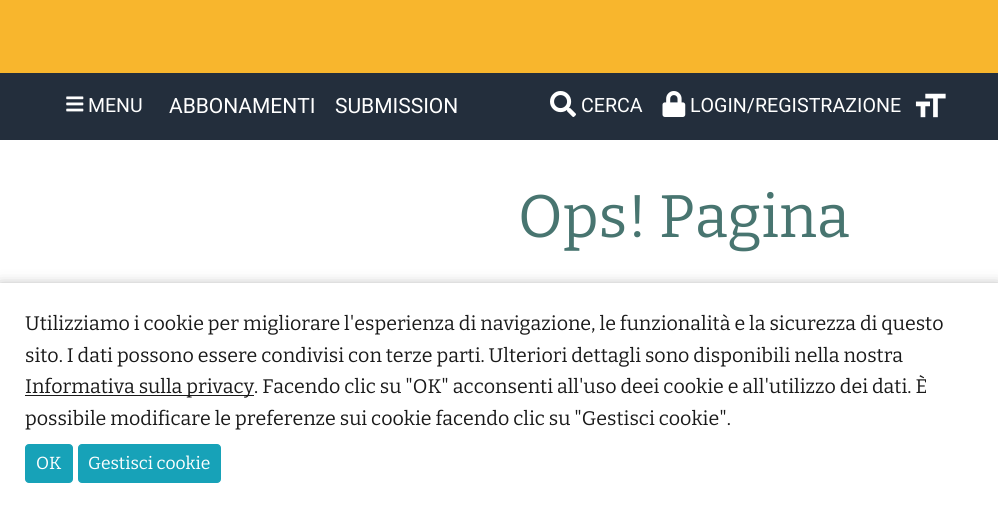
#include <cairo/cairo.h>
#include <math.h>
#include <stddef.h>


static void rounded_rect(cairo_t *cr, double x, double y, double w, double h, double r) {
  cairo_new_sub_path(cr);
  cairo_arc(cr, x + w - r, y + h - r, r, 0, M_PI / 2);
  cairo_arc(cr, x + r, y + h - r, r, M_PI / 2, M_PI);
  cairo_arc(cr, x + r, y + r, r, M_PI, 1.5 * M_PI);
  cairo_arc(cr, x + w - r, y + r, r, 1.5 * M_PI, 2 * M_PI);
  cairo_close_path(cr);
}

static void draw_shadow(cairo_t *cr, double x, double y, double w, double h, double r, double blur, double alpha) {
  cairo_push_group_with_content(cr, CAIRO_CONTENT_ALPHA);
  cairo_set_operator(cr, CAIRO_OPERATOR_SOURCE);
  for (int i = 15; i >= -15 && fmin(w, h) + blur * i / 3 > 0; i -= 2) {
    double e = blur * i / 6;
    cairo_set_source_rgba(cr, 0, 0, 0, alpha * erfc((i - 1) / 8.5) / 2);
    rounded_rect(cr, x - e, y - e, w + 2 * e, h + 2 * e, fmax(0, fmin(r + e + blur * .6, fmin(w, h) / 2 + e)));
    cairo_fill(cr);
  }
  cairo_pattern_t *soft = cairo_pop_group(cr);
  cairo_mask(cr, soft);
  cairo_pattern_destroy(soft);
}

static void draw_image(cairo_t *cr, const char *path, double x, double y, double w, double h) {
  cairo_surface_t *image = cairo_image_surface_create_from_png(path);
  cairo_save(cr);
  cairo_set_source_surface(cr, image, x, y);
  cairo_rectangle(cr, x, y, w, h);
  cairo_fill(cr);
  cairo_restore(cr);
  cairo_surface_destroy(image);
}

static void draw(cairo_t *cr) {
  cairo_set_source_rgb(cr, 1, 1, 1);
  cairo_paint(cr);
  cairo_set_source_rgb(cr, 248 / 255.0, 182 / 255.0, 45 / 255.0);
  cairo_rectangle(cr, 0, 0, 998, 73);
  cairo_fill(cr);
  cairo_set_source_rgb(cr, 35 / 255.0, 46 / 255.0, 60 / 255.0);
  cairo_rectangle(cr, 0, 73, 998, 67);
  cairo_fill(cr);
  draw_image(cr, "images/1.png", 66, 96, 18, 16);
  draw_image(cr, "images/2.png", 550, 91, 26, 26);
  draw_image(cr, "images/3.png", 662, 91, 24, 26);
  draw_image(cr, "images/4.png", 915, 93, 31, 25);
  cairo_set_source_rgb(cr, 0, 0, 0);
  draw_shadow(cr, 0, 288, 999, 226, 0, 7.5, 0.5);
  cairo_set_source_rgb(cr, 1, 1, 1);
  cairo_rectangle(cr, 0, 283, 998, 225);
  cairo_fill(cr);
  cairo_set_source_rgb(cr, 26 / 255.0, 26 / 255.0, 26 / 255.0);
  cairo_rectangle(cr, 25, 395, 229, 1);
  cairo_fill(cr);
  cairo_set_source_rgb(cr, 23 / 255.0, 162 / 255.0, 184 / 255.0);
  rounded_rect(cr, 25.5, 444.5, 47, 38, 3.5);
  cairo_fill_preserve(cr);
  cairo_set_line_width(cr, 1);
  cairo_stroke(cr);
  rounded_rect(cr, 78.5, 444.5, 142, 38, 3.5);
  cairo_fill_preserve(cr);
  cairo_stroke(cr);
  cairo_select_font_face(cr, "Roboto", CAIRO_FONT_SLANT_NORMAL, CAIRO_FONT_WEIGHT_NORMAL);
  cairo_set_font_size(cr, 19.5);
  cairo_set_source_rgb(cr, 1, 1, 1);
  cairo_move_to(cr, 88, 112);
  cairo_show_text(cr, "MENU");
  cairo_set_font_size(cr, 21);
  cairo_move_to(cr, 169, 113);
  cairo_show_text(cr, "ABBONAMENTI");
  cairo_move_to(cr, 335, 113);
  cairo_show_text(cr, "SUBMISSION");
  cairo_set_font_size(cr, 19.65);
  cairo_move_to(cr, 581, 112);
  cairo_show_text(cr, "CERCA");
  cairo_move_to(cr, 690, 112);
  cairo_show_text(cr, "LOGIN/REGISTRAZIONE");
  cairo_select_font_face(cr, "Bitter", CAIRO_FONT_SLANT_NORMAL, CAIRO_FONT_WEIGHT_NORMAL);
  cairo_set_font_size(cr, 60);
  cairo_set_source_rgb(cr, 72 / 255.0, 117 / 255.0, 112 / 255.0);
  cairo_move_to(cr, 518, 237);
  cairo_show_text(cr, "Ops! Pagina");
  cairo_set_font_size(cr, 19.65);
  cairo_set_source_rgb(cr, 26 / 255.0, 26 / 255.0, 26 / 255.0);
  cairo_move_to(cr, 25, 330);
  cairo_show_text(cr, "Utilizziamo i cookie per migliorare l'esperienza di navigazione, le funzionalità e la sicurezza di questo");
  cairo_move_to(cr, 25, 362);
  cairo_show_text(cr, "sito. I dati possono essere condivisi con terze parti. Ulteriori dettagli sono disponibili nella nostra");
  cairo_move_to(cr, 25, 393);
  cairo_show_text(cr, "Informativa sulla privacy. Facendo clic su \"OK\" acconsenti all'uso deei cookie e all'utilizzo dei dati. È");
  cairo_move_to(cr, 25, 425);
  cairo_show_text(cr, "possibile modificare le preferenze sui cookie facendo clic su \"Gestisci cookie\".");
  cairo_set_font_size(cr, 17.5);
  cairo_set_source_rgb(cr, 1, 1, 1);
  cairo_move_to(cr, 36, 469);
  cairo_show_text(cr, "OK");
  cairo_move_to(cr, 88, 469);
  cairo_show_text(cr, "Gestisci cookie");
}

int main(void) {
  cairo_surface_t *surface = cairo_image_surface_create(CAIRO_FORMAT_RGB24, 998, 508);
  cairo_t *cr = cairo_create(surface);
  cairo_font_options_t *options = cairo_font_options_create();
  cairo_font_options_set_hint_metrics(options, CAIRO_HINT_METRICS_OFF);
  cairo_font_options_set_hint_style(options, CAIRO_HINT_STYLE_NONE);
  cairo_set_font_options(cr, options);
  cairo_set_miter_limit(cr, 4);
  draw(cr);
  cairo_surface_write_to_png(surface, "out.png");
  cairo_font_options_destroy(options);
  cairo_destroy(cr);
  cairo_surface_destroy(surface);
  return 0;
}
